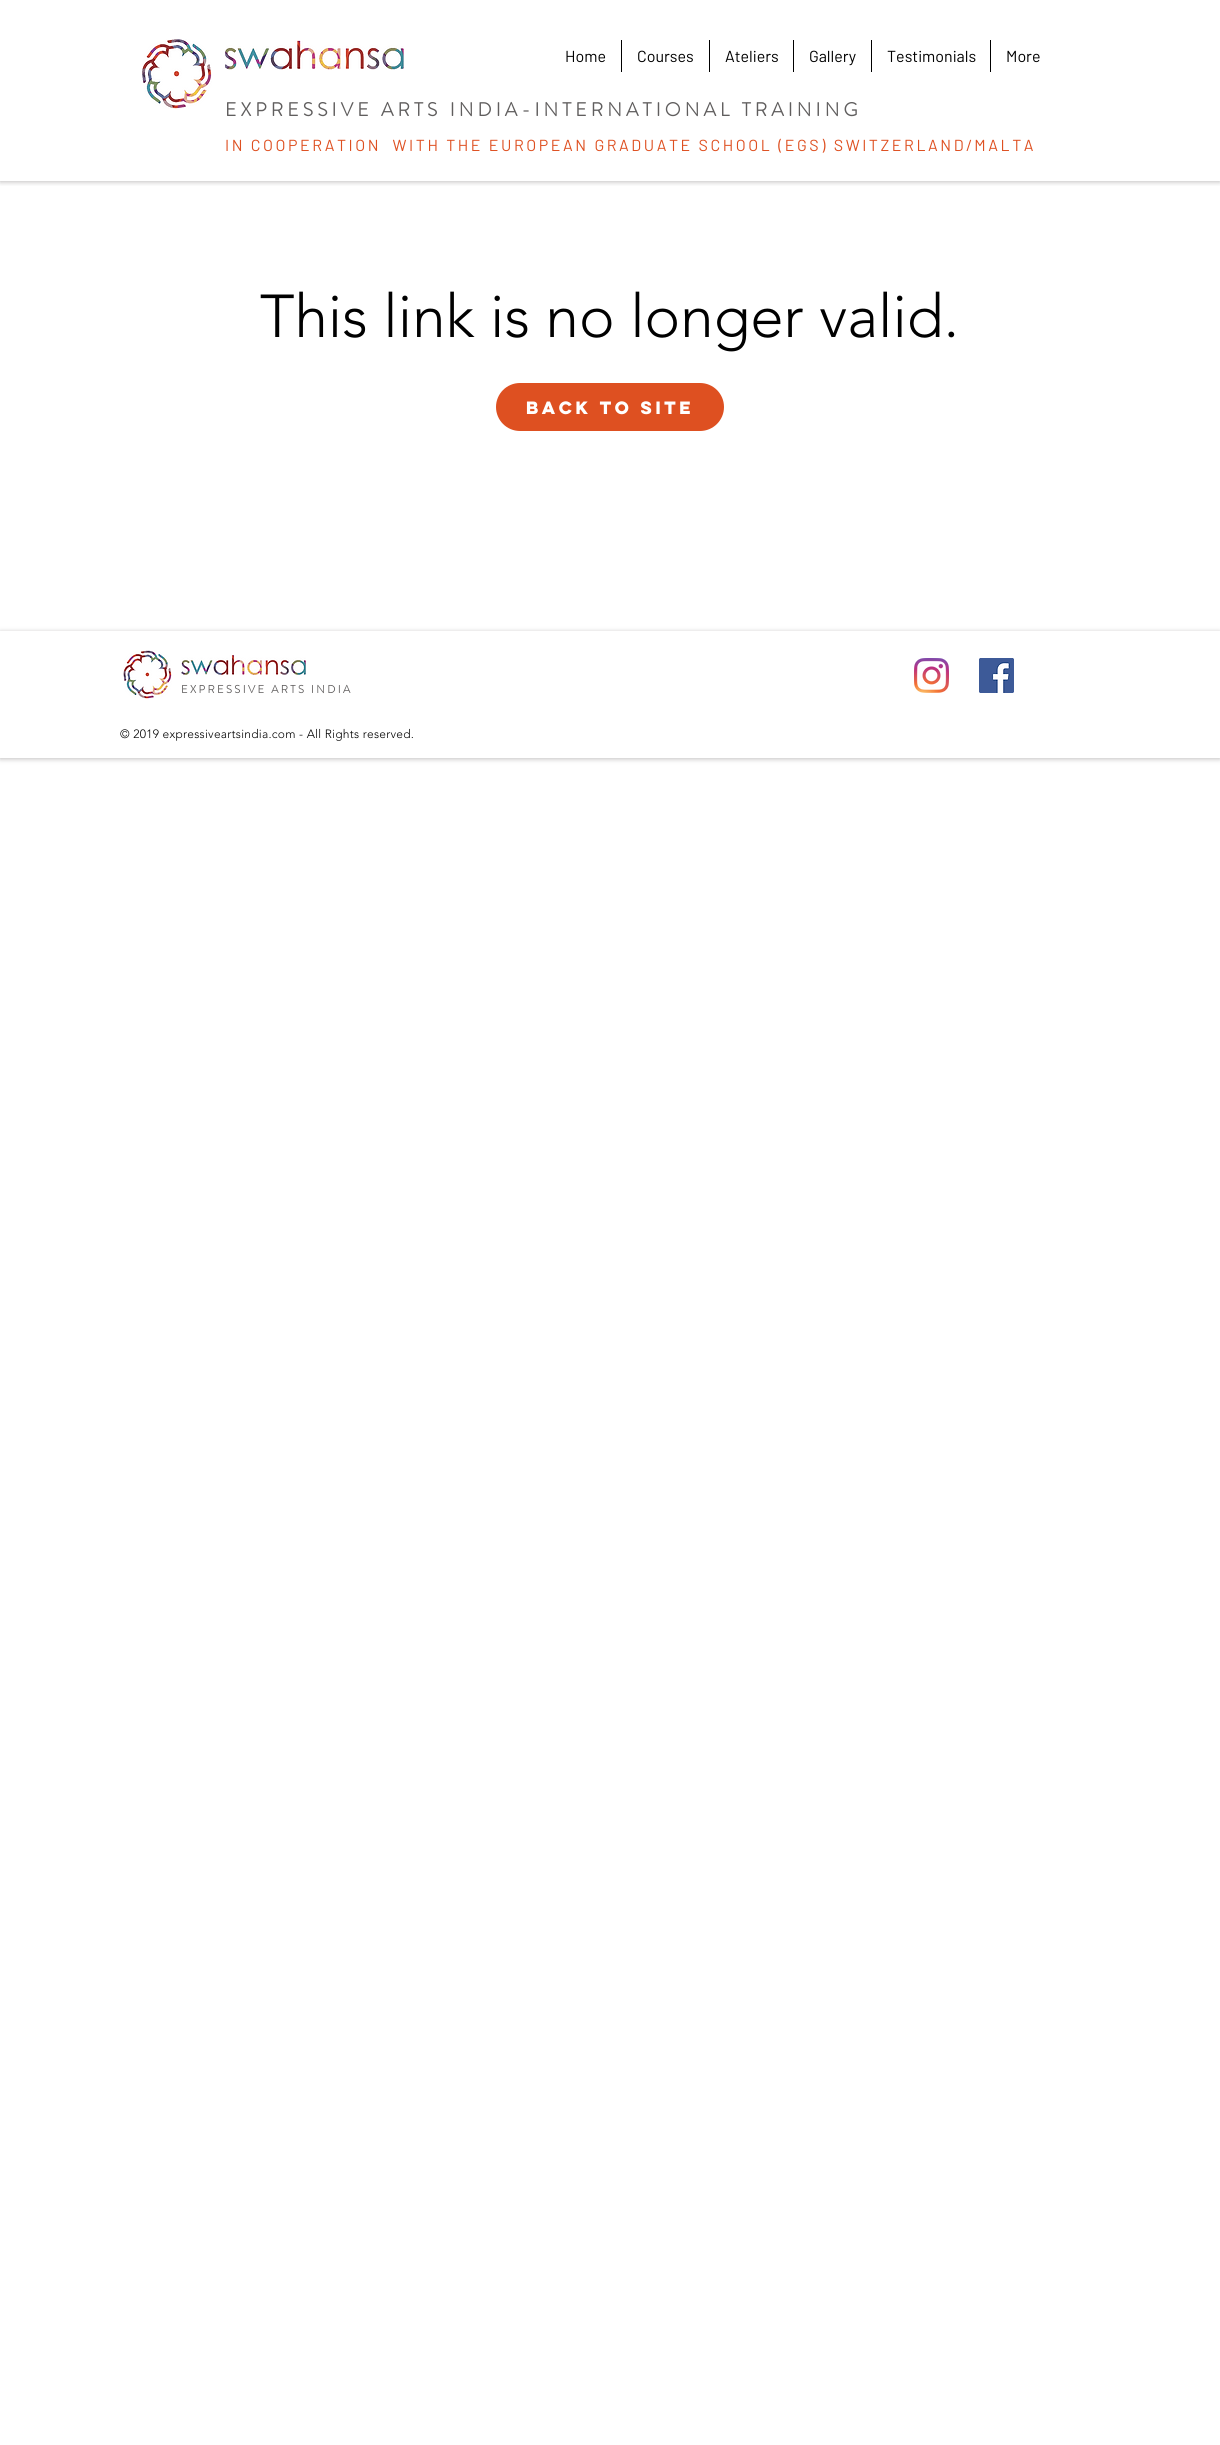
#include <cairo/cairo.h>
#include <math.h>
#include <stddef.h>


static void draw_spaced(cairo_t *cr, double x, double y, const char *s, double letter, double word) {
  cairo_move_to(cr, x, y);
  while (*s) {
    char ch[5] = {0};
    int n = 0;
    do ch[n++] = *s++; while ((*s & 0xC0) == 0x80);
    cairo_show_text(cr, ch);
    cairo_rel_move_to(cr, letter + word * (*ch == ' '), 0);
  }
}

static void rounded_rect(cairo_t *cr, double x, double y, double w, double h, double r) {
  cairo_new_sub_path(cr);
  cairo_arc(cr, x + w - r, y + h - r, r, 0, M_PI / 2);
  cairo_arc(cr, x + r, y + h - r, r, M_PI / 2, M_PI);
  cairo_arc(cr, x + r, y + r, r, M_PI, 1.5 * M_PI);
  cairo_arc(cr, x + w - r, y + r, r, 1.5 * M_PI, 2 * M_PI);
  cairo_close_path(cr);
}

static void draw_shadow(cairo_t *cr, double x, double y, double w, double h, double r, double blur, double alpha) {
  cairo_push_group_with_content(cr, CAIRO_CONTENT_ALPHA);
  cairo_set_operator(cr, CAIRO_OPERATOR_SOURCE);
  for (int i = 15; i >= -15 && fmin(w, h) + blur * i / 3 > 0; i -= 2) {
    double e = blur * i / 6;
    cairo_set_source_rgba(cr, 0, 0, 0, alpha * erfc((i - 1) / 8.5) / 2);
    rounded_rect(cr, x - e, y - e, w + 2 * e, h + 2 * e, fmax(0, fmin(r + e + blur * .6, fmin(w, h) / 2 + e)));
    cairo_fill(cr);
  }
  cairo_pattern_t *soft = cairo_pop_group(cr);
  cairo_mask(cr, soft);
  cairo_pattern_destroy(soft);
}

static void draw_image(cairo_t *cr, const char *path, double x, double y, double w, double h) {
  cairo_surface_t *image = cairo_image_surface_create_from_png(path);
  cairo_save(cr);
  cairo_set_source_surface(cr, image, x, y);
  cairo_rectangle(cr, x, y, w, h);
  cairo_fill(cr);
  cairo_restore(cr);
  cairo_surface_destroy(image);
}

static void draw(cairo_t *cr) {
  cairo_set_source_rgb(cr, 1, 1, 1);
  cairo_paint(cr);
  cairo_save(cr);
  cairo_rectangle(cr, 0, 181, 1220, 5);
  cairo_clip(cr);
  cairo_set_source_rgb(cr, 96 / 255.0, 94 / 255.0, 94 / 255.0);
  draw_shadow(cr, 0, 1, 1220, 181, 0, 2.5, 0.4);
  cairo_restore(cr);
  draw_image(cr, "images/1.png", 142, 39, 70, 70);
  draw_image(cr, "images/2.png", 225, 40, 179, 30);
  cairo_set_source_rgb(cr, 0, 0, 0);
  cairo_rectangle(cr, 621, 40, 1, 32);
  cairo_fill(cr);
  cairo_rectangle(cr, 709, 40, 1, 32);
  cairo_fill(cr);
  cairo_rectangle(cr, 793, 40, 1, 32);
  cairo_fill(cr);
  cairo_rectangle(cr, 871, 40, 1, 32);
  cairo_fill(cr);
  cairo_rectangle(cr, 990, 40, 1, 32);
  cairo_fill(cr);
  cairo_set_source_rgb(cr, 222 / 255.0, 80 / 255.0, 33 / 255.0);
  rounded_rect(cr, 496, 383, 228, 48, 24);
  cairo_fill(cr);
  cairo_save(cr);
  cairo_set_fill_rule(cr, CAIRO_FILL_RULE_EVEN_ODD);
  cairo_new_path(cr);
  cairo_move_to(cr, 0, 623);
  cairo_line_to(cr, 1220, 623);
  cairo_line_to(cr, 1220, 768);
  cairo_line_to(cr, 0, 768);
  cairo_close_path(cr);
  cairo_move_to(cr, 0, 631);
  cairo_line_to(cr, 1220, 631);
  cairo_line_to(cr, 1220, 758);
  cairo_line_to(cr, 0, 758);
  cairo_close_path(cr);
  cairo_clip(cr);
  cairo_set_source_rgb(cr, 96 / 255.0, 94 / 255.0, 94 / 255.0);
  draw_shadow(cr, 0, 632, 1220, 127, 0, 2.5, 0.4);
  cairo_restore(cr);
  draw_image(cr, "images/3.png", 123, 650, 49, 49);
  draw_image(cr, "images/4.png", 181, 655, 125, 20);
  draw_image(cr, "images/5.png", 914, 658, 35, 35);
  draw_image(cr, "images/6.png", 979, 658, 35, 35);
  cairo_select_font_face(cr, "Barlow", CAIRO_FONT_SLANT_NORMAL, CAIRO_FONT_WEIGHT_NORMAL);
  cairo_set_font_size(cr, 16);
  cairo_set_source_rgb(cr, 0, 0, 0);
  cairo_move_to(cr, 565, 62);
  cairo_show_text(cr, "Home");
  cairo_move_to(cr, 637, 62);
  cairo_show_text(cr, "Courses");
  cairo_move_to(cr, 725, 62);
  cairo_show_text(cr, "Ateliers");
  cairo_move_to(cr, 809, 62);
  cairo_show_text(cr, "Gallery");
  cairo_move_to(cr, 887, 62);
  cairo_show_text(cr, "Testimonials");
  cairo_move_to(cr, 1006, 62);
  cairo_show_text(cr, "More");
  cairo_select_font_face(cr, "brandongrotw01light", CAIRO_FONT_SLANT_NORMAL, CAIRO_FONT_WEIGHT_BOLD);
  cairo_set_font_size(cr, 19);
  cairo_set_source_rgb(cr, 96 / 255.0, 94 / 255.0, 94 / 255.0);
  cairo_move_to(cr, 225, 116);
  cairo_show_text(cr, "E X P R E S S I V E   A R T S   I N D I A - I N T E R N A T I O N A L   T R A I N I N G");
  cairo_select_font_face(cr, "Barlow", CAIRO_FONT_SLANT_NORMAL, CAIRO_FONT_WEIGHT_NORMAL);
  cairo_set_font_size(cr, 16);
  cairo_set_source_rgb(cr, 222 / 255.0, 80 / 255.0, 33 / 255.0);
  draw_spaced(cr, 225, 151, "IN COOPERATION  WITH THE EUROPEAN GRADUATE SCHOOL (EGS) SWITZERLAND/MALTA", 2.55, 0);
  cairo_select_font_face(cr, "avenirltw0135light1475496 Light", CAIRO_FONT_SLANT_NORMAL, CAIRO_FONT_WEIGHT_NORMAL);
  cairo_set_font_size(cr, 60);
  cairo_set_source_rgb(cr, 0, 0, 0);
  cairo_move_to(cr, 260, 337);
  cairo_show_text(cr, "This link is no longer valid.");
  cairo_select_font_face(cr, "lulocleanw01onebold", CAIRO_FONT_SLANT_NORMAL, CAIRO_FONT_WEIGHT_BOLD);
  cairo_set_font_size(cr, 16);
  cairo_set_source_rgb(cr, 1, 1, 1);
  cairo_move_to(cr, 526, 414);
  cairo_show_text(cr, "Back to Site");
  cairo_select_font_face(cr, "brandongrotw01light", CAIRO_FONT_SLANT_NORMAL, CAIRO_FONT_WEIGHT_BOLD);
  cairo_set_font_size(cr, 11);
  cairo_set_source_rgb(cr, 96 / 255.0, 94 / 255.0, 94 / 255.0);
  cairo_move_to(cr, 181, 693);
  cairo_show_text(cr, "E X P R E S S I V E   A R T S   I N D I A");
  cairo_select_font_face(cr, "avenirltw0135light1475496 Light", CAIRO_FONT_SLANT_NORMAL, CAIRO_FONT_WEIGHT_NORMAL);
  cairo_set_font_size(cr, 12);
  cairo_set_source_rgb(cr, 0, 0, 0);
  draw_spaced(cr, 120, 738, "© 2019 expressiveartsindia.com - All Rights reserved.", 0.25, 0);
}

int main(void) {
  cairo_surface_t *surface = cairo_image_surface_create(CAIRO_FORMAT_RGB24, 1220, 2445);
  cairo_t *cr = cairo_create(surface);
  cairo_font_options_t *options = cairo_font_options_create();
  cairo_font_options_set_hint_metrics(options, CAIRO_HINT_METRICS_OFF);
  cairo_font_options_set_hint_style(options, CAIRO_HINT_STYLE_NONE);
  cairo_set_font_options(cr, options);
  cairo_set_miter_limit(cr, 4);
  draw(cr);
  cairo_surface_write_to_png(surface, "out.png");
  cairo_font_options_destroy(options);
  cairo_destroy(cr);
  cairo_surface_destroy(surface);
  return 0;
}
